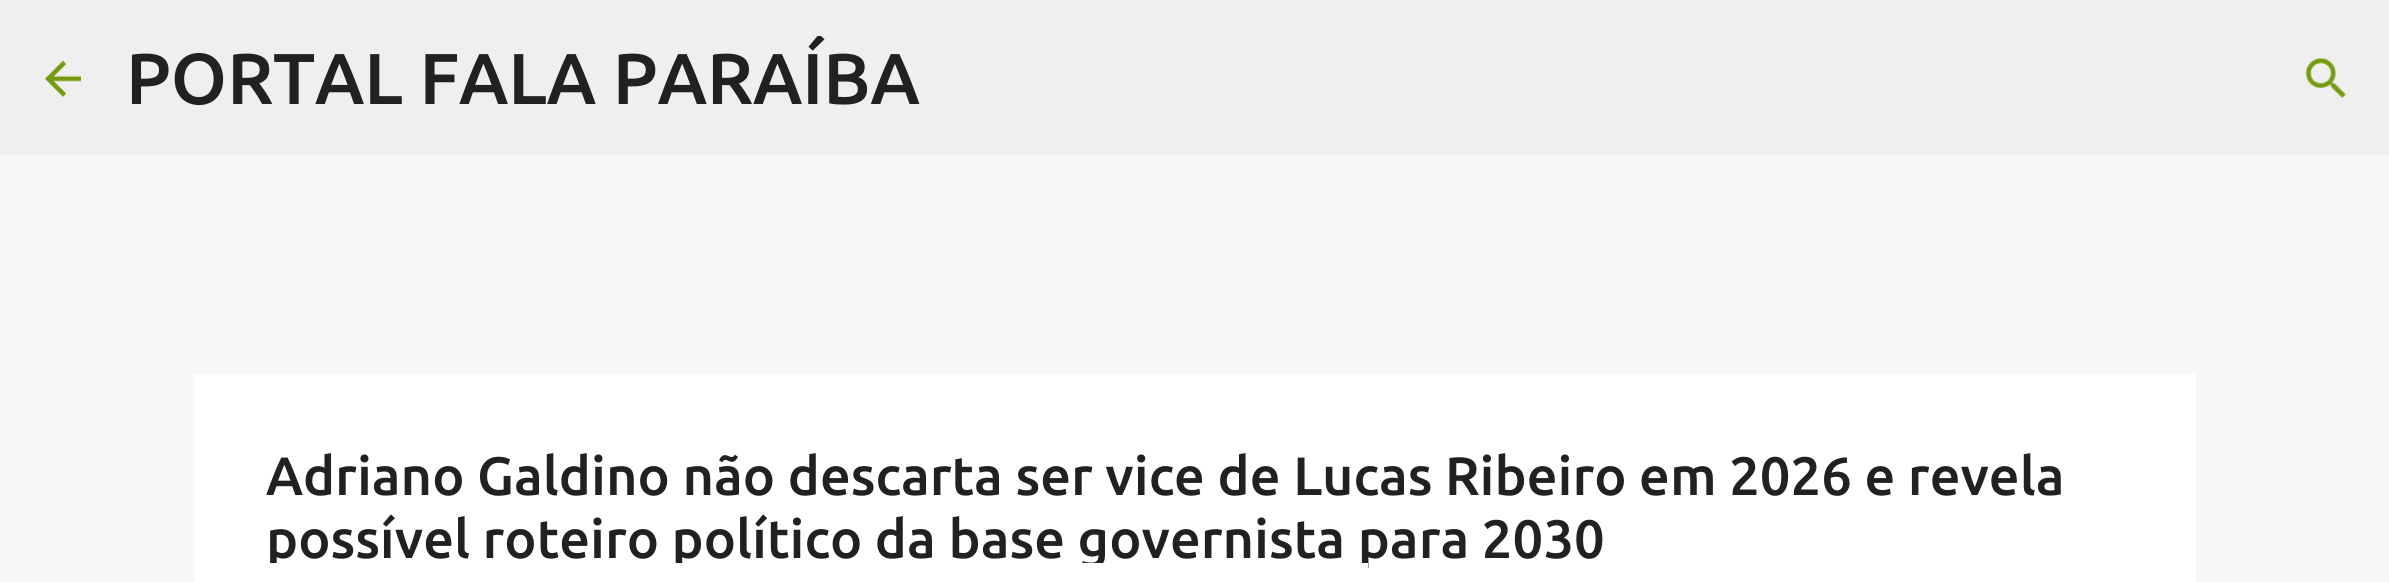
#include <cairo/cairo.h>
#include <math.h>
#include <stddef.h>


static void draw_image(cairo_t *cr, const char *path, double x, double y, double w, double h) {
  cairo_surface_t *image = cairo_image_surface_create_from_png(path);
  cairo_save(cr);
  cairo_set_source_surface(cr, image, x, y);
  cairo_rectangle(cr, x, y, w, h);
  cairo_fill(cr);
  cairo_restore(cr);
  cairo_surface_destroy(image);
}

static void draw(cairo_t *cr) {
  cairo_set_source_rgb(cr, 247 / 255.0, 247 / 255.0, 247 / 255.0);
  cairo_paint(cr);
  cairo_set_source_rgb(cr, 239 / 255.0, 239 / 255.0, 239 / 255.0);
  cairo_rectangle(cr, 0, 0, 2389, 155);
  cairo_fill(cr);
  draw_image(cr, "images/1.png", 45, 60, 36, 37);
  draw_image(cr, "images/2.png", 2305, 57, 41, 41);
  cairo_set_source_rgb(cr, 1, 1, 1);
  cairo_rectangle(cr, 194, 374, 2002, 208);
  cairo_fill(cr);
  cairo_save(cr);
  cairo_rectangle(cr, 126, 36, 794, 83);
  cairo_clip(cr);
  cairo_select_font_face(cr, "Ubuntu Medium", CAIRO_FONT_SLANT_NORMAL, CAIRO_FONT_WEIGHT_NORMAL);
  cairo_set_font_size(cr, 72);
  cairo_set_source_rgb(cr, 33 / 255.0, 33 / 255.0, 33 / 255.0);
  cairo_move_to(cr, 126, 104);
  cairo_show_text(cr, "PORTAL FALA PARAÍBA");
  cairo_restore(cr);
  cairo_select_font_face(cr, "Ubuntu Medium", CAIRO_FONT_SLANT_NORMAL, CAIRO_FONT_WEIGHT_NORMAL);
  cairo_set_font_size(cr, 54);
  cairo_set_source_rgb(cr, 33 / 255.0, 33 / 255.0, 33 / 255.0);
  cairo_move_to(cr, 266, 495);
  cairo_show_text(cr, "Adriano Galdino não descarta ser vice de Lucas Ribeiro em 2026 e revela");
  cairo_move_to(cr, 266, 558);
  cairo_show_text(cr, "possível roteiro político da base governista para 2030");
  cairo_set_source_rgb(cr, 1, 1, 1);
  cairo_rectangle(cr, 269, 563, 1099, 6);
  cairo_fill(cr);
}

int main(void) {
  cairo_surface_t *surface = cairo_image_surface_create(CAIRO_FORMAT_RGB24, 2389, 582);
  cairo_t *cr = cairo_create(surface);
  cairo_font_options_t *options = cairo_font_options_create();
  cairo_font_options_set_hint_metrics(options, CAIRO_HINT_METRICS_OFF);
  cairo_font_options_set_hint_style(options, CAIRO_HINT_STYLE_NONE);
  cairo_set_font_options(cr, options);
  cairo_set_miter_limit(cr, 4);
  draw(cr);
  cairo_surface_write_to_png(surface, "out.png");
  cairo_font_options_destroy(options);
  cairo_destroy(cr);
  cairo_surface_destroy(surface);
  return 0;
}
